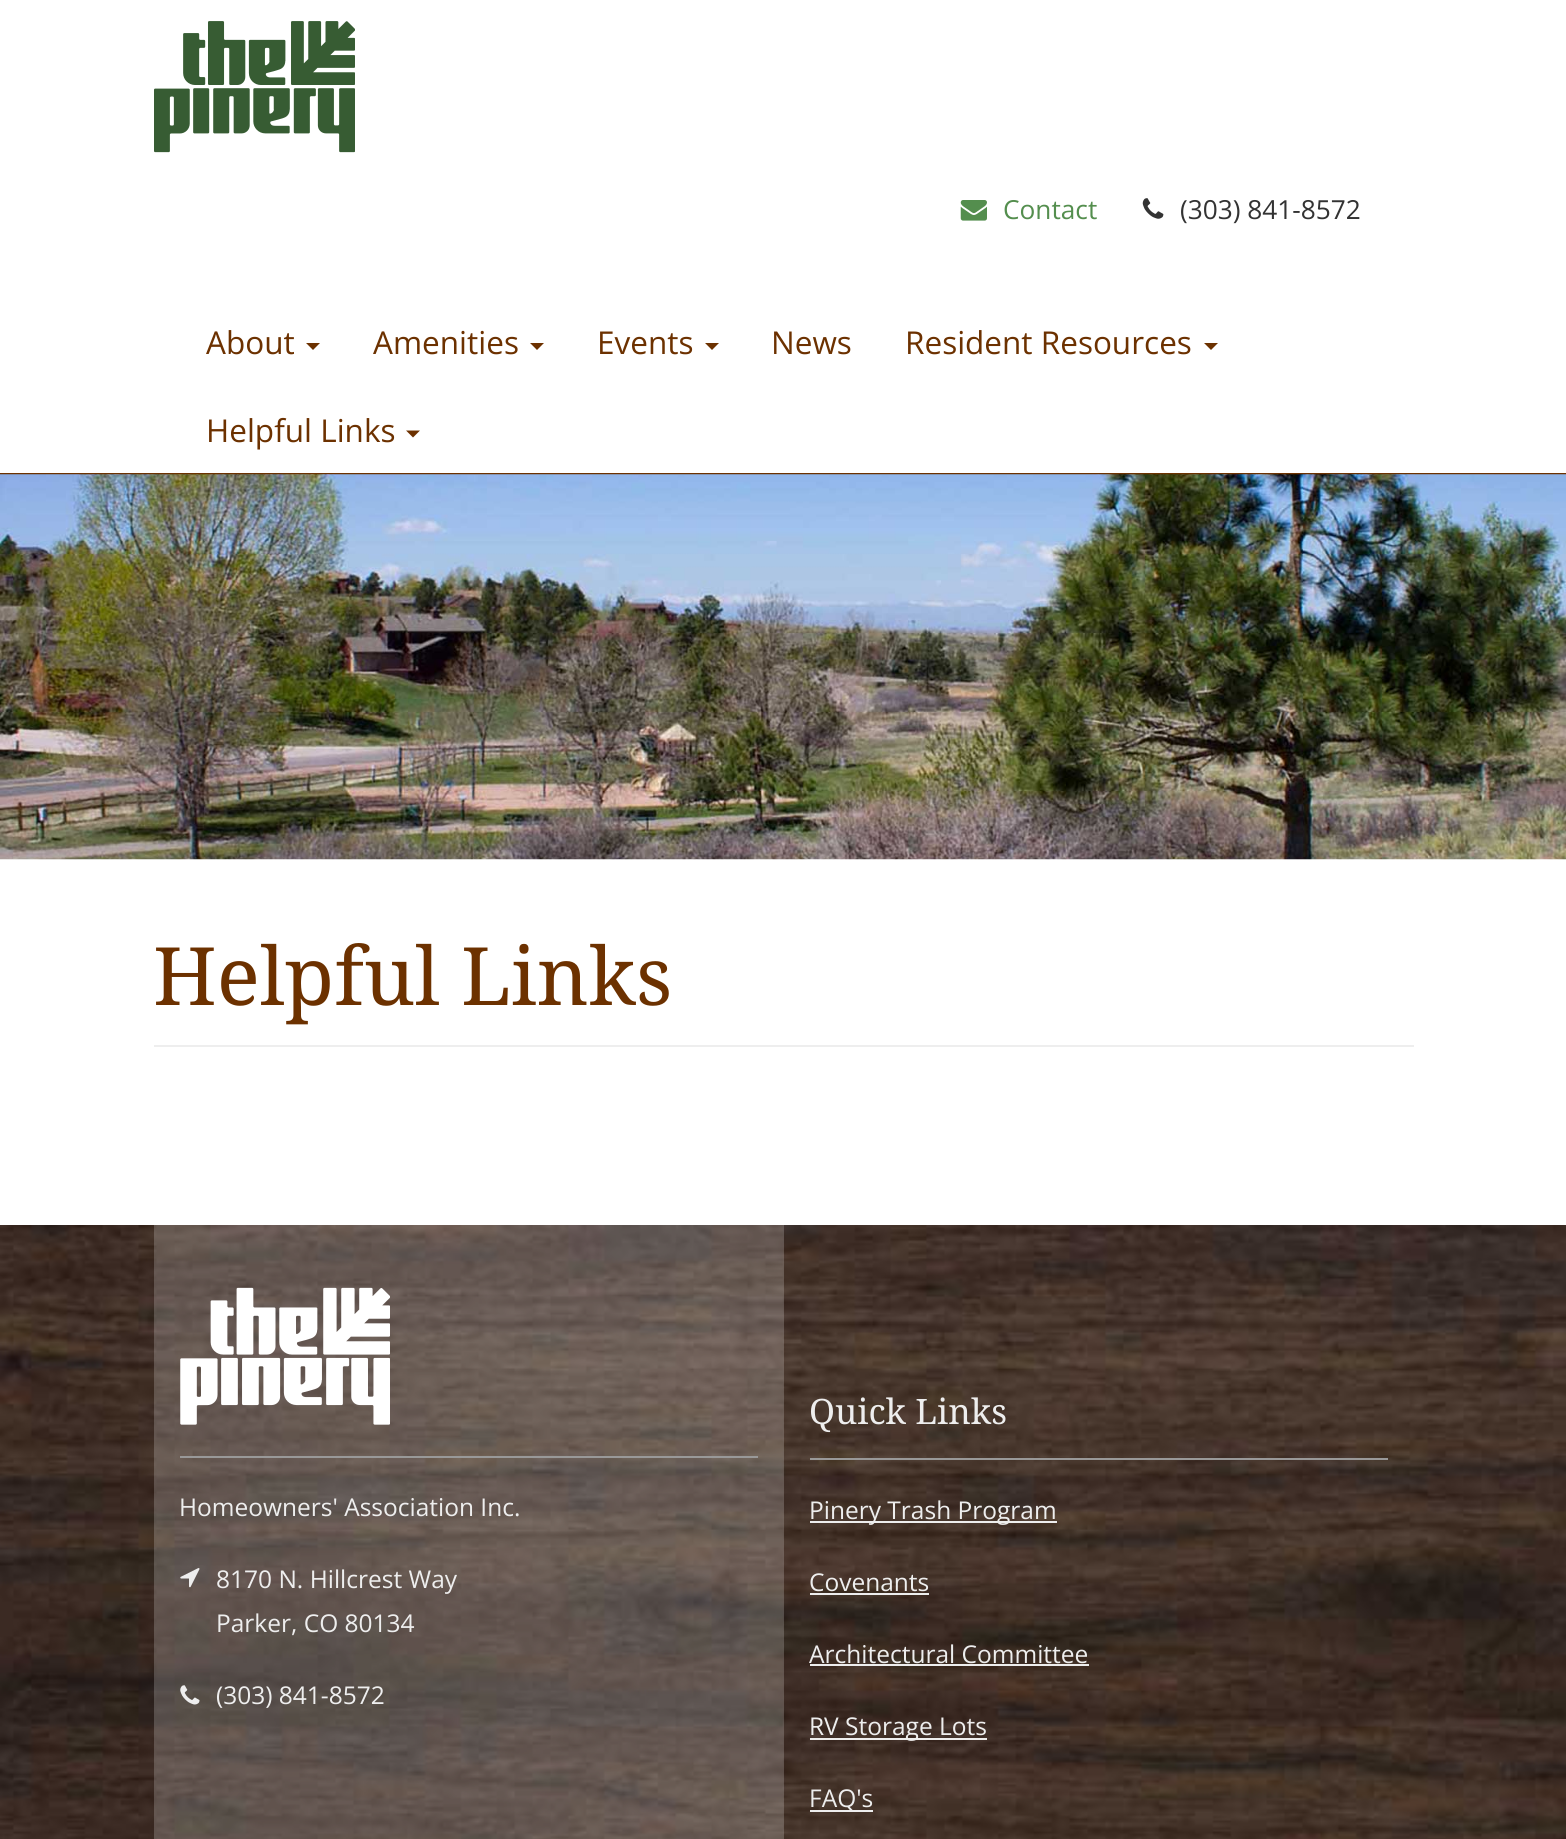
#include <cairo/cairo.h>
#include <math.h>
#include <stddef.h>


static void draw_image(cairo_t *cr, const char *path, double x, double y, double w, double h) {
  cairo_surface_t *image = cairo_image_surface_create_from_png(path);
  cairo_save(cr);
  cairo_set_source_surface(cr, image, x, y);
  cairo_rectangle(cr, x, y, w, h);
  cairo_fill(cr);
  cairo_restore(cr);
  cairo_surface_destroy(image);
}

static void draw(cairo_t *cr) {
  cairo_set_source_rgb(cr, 1, 1, 1);
  cairo_paint(cr);
  cairo_set_source_rgb(cr, 108 / 255.0, 49 / 255.0, 0);
  cairo_rectangle(cr, 0, 473, 1566, 2);
  cairo_fill(cr);
  draw_image(cr, "images/1.png", 154, 21, 201, 132);
  draw_image(cr, "images/2.png", 960, 200, 27, 21);
  draw_image(cr, "images/3.png", 1142, 198, 22, 21);
  cairo_new_path(cr);
  cairo_move_to(cr, 306, 343);
  cairo_line_to(cr, 320, 343);
  cairo_line_to(cr, 313, 350);
  cairo_close_path(cr);
  cairo_fill(cr);
  cairo_new_path(cr);
  cairo_move_to(cr, 530, 343);
  cairo_line_to(cr, 544, 343);
  cairo_line_to(cr, 537, 350);
  cairo_close_path(cr);
  cairo_fill(cr);
  cairo_new_path(cr);
  cairo_move_to(cr, 705, 343);
  cairo_line_to(cr, 719, 343);
  cairo_line_to(cr, 712, 350);
  cairo_close_path(cr);
  cairo_fill(cr);
  cairo_new_path(cr);
  cairo_move_to(cr, 1204, 343);
  cairo_line_to(cr, 1218, 343);
  cairo_line_to(cr, 1211, 350);
  cairo_close_path(cr);
  cairo_fill(cr);
  cairo_new_path(cr);
  cairo_move_to(cr, 406, 430.5);
  cairo_line_to(cr, 420, 430.5);
  cairo_line_to(cr, 413, 437.5);
  cairo_close_path(cr);
  cairo_fill(cr);
  draw_image(cr, "images/4.png", 0, 474, 1566, 386);
  cairo_set_source_rgb(cr, 238 / 255.0, 238 / 255.0, 238 / 255.0);
  cairo_rectangle(cr, 154, 1045, 1260, 2);
  cairo_fill(cr);
  draw_image(cr, "images/5.png", 0, 1225, 1566, 614);
  cairo_set_source_rgba(cr, 1, 1, 1, 0.2);
  cairo_rectangle(cr, 154, 1225, 630, 614);
  cairo_fill(cr);
  draw_image(cr, "images/6.png", 180, 1287, 210, 138);
  cairo_set_source_rgb(cr, 153 / 255.0, 153 / 255.0, 153 / 255.0);
  cairo_rectangle(cr, 180, 1456, 578, 2);
  cairo_fill(cr);
  draw_image(cr, "images/7.png", 180, 1568, 20, 20);
  draw_image(cr, "images/8.png", 180, 1685, 20, 20);
  cairo_rectangle(cr, 810, 1458, 578, 2);
  cairo_fill(cr);
  cairo_set_source_rgb(cr, 238 / 255.0, 238 / 255.0, 238 / 255.0);
  cairo_rectangle(cr, 810, 1521, 247, 2);
  cairo_fill(cr);
  cairo_rectangle(cr, 810, 1593, 119, 2);
  cairo_fill(cr);
  cairo_rectangle(cr, 810, 1664, 279, 2);
  cairo_fill(cr);
  cairo_rectangle(cr, 810, 1738, 177, 2);
  cairo_fill(cr);
  cairo_rectangle(cr, 810, 1810, 63, 2);
  cairo_fill(cr);
  cairo_select_font_face(cr, "Open Sans", CAIRO_FONT_SLANT_NORMAL, CAIRO_FONT_WEIGHT_NORMAL);
  cairo_set_font_size(cr, 26.25);
  cairo_set_source_rgb(cr, 84 / 255.0, 142 / 255.0, 78 / 255.0);
  cairo_move_to(cr, 1003, 219);
  cairo_show_text(cr, "Contact");
  cairo_set_source_rgb(cr, 51 / 255.0, 51 / 255.0, 51 / 255.0);
  cairo_move_to(cr, 1180, 219);
  cairo_show_text(cr, "(303) 841-8572");
  cairo_set_font_size(cr, 31.5);
  cairo_set_source_rgb(cr, 108 / 255.0, 49 / 255.0, 0);
  cairo_move_to(cr, 206, 354);
  cairo_show_text(cr, "About");
  cairo_move_to(cr, 373, 354);
  cairo_show_text(cr, "Amenities");
  cairo_move_to(cr, 597, 354);
  cairo_show_text(cr, "Events");
  cairo_move_to(cr, 771, 354);
  cairo_show_text(cr, "News");
  cairo_move_to(cr, 905, 354);
  cairo_show_text(cr, "Resident Resources");
  cairo_move_to(cr, 206, 442);
  cairo_show_text(cr, "Helpful Links");
  cairo_select_font_face(cr, "Noto Serif", CAIRO_FONT_SLANT_NORMAL, CAIRO_FONT_WEIGHT_NORMAL);
  cairo_set_font_size(cr, 80.5);
  cairo_move_to(cr, 153, 1005);
  cairo_show_text(cr, "Helpful Links");
  cairo_select_font_face(cr, "Open Sans", CAIRO_FONT_SLANT_NORMAL, CAIRO_FONT_WEIGHT_NORMAL);
  cairo_set_font_size(cr, 24.5);
  cairo_set_source_rgb(cr, 238 / 255.0, 238 / 255.0, 238 / 255.0);
  cairo_move_to(cr, 179, 1516);
  cairo_show_text(cr, "Homeowners' Association Inc.");
  cairo_move_to(cr, 216, 1588);
  cairo_show_text(cr, "8170 N. Hillcrest Way");
  cairo_move_to(cr, 216, 1632);
  cairo_show_text(cr, "Parker, CO 80134");
  cairo_move_to(cr, 216, 1704);
  cairo_show_text(cr, "(303) 841-8572");
  cairo_select_font_face(cr, "Noto Serif", CAIRO_FONT_SLANT_NORMAL, CAIRO_FONT_WEIGHT_NORMAL);
  cairo_set_font_size(cr, 35);
  cairo_move_to(cr, 809, 1424);
  cairo_show_text(cr, "Quick Links");
  cairo_select_font_face(cr, "Open Sans", CAIRO_FONT_SLANT_NORMAL, CAIRO_FONT_WEIGHT_NORMAL);
  cairo_set_font_size(cr, 24.5);
  cairo_move_to(cr, 809, 1519);
  cairo_show_text(cr, "Pinery Trash Program");
  cairo_move_to(cr, 809, 1591);
  cairo_show_text(cr, "Covenants");
  cairo_move_to(cr, 809, 1663);
  cairo_show_text(cr, "Architectural Committee");
  cairo_move_to(cr, 809, 1735);
  cairo_show_text(cr, "RV Storage Lots");
  cairo_move_to(cr, 809, 1807);
  cairo_show_text(cr, "FAQ's");
}

int main(void) {
  cairo_surface_t *surface = cairo_image_surface_create(CAIRO_FORMAT_RGB24, 1566, 1839);
  cairo_t *cr = cairo_create(surface);
  cairo_font_options_t *options = cairo_font_options_create();
  cairo_font_options_set_hint_metrics(options, CAIRO_HINT_METRICS_OFF);
  cairo_font_options_set_hint_style(options, CAIRO_HINT_STYLE_NONE);
  cairo_set_font_options(cr, options);
  cairo_set_miter_limit(cr, 4);
  draw(cr);
  cairo_surface_write_to_png(surface, "out.png");
  cairo_font_options_destroy(options);
  cairo_destroy(cr);
  cairo_surface_destroy(surface);
  return 0;
}
